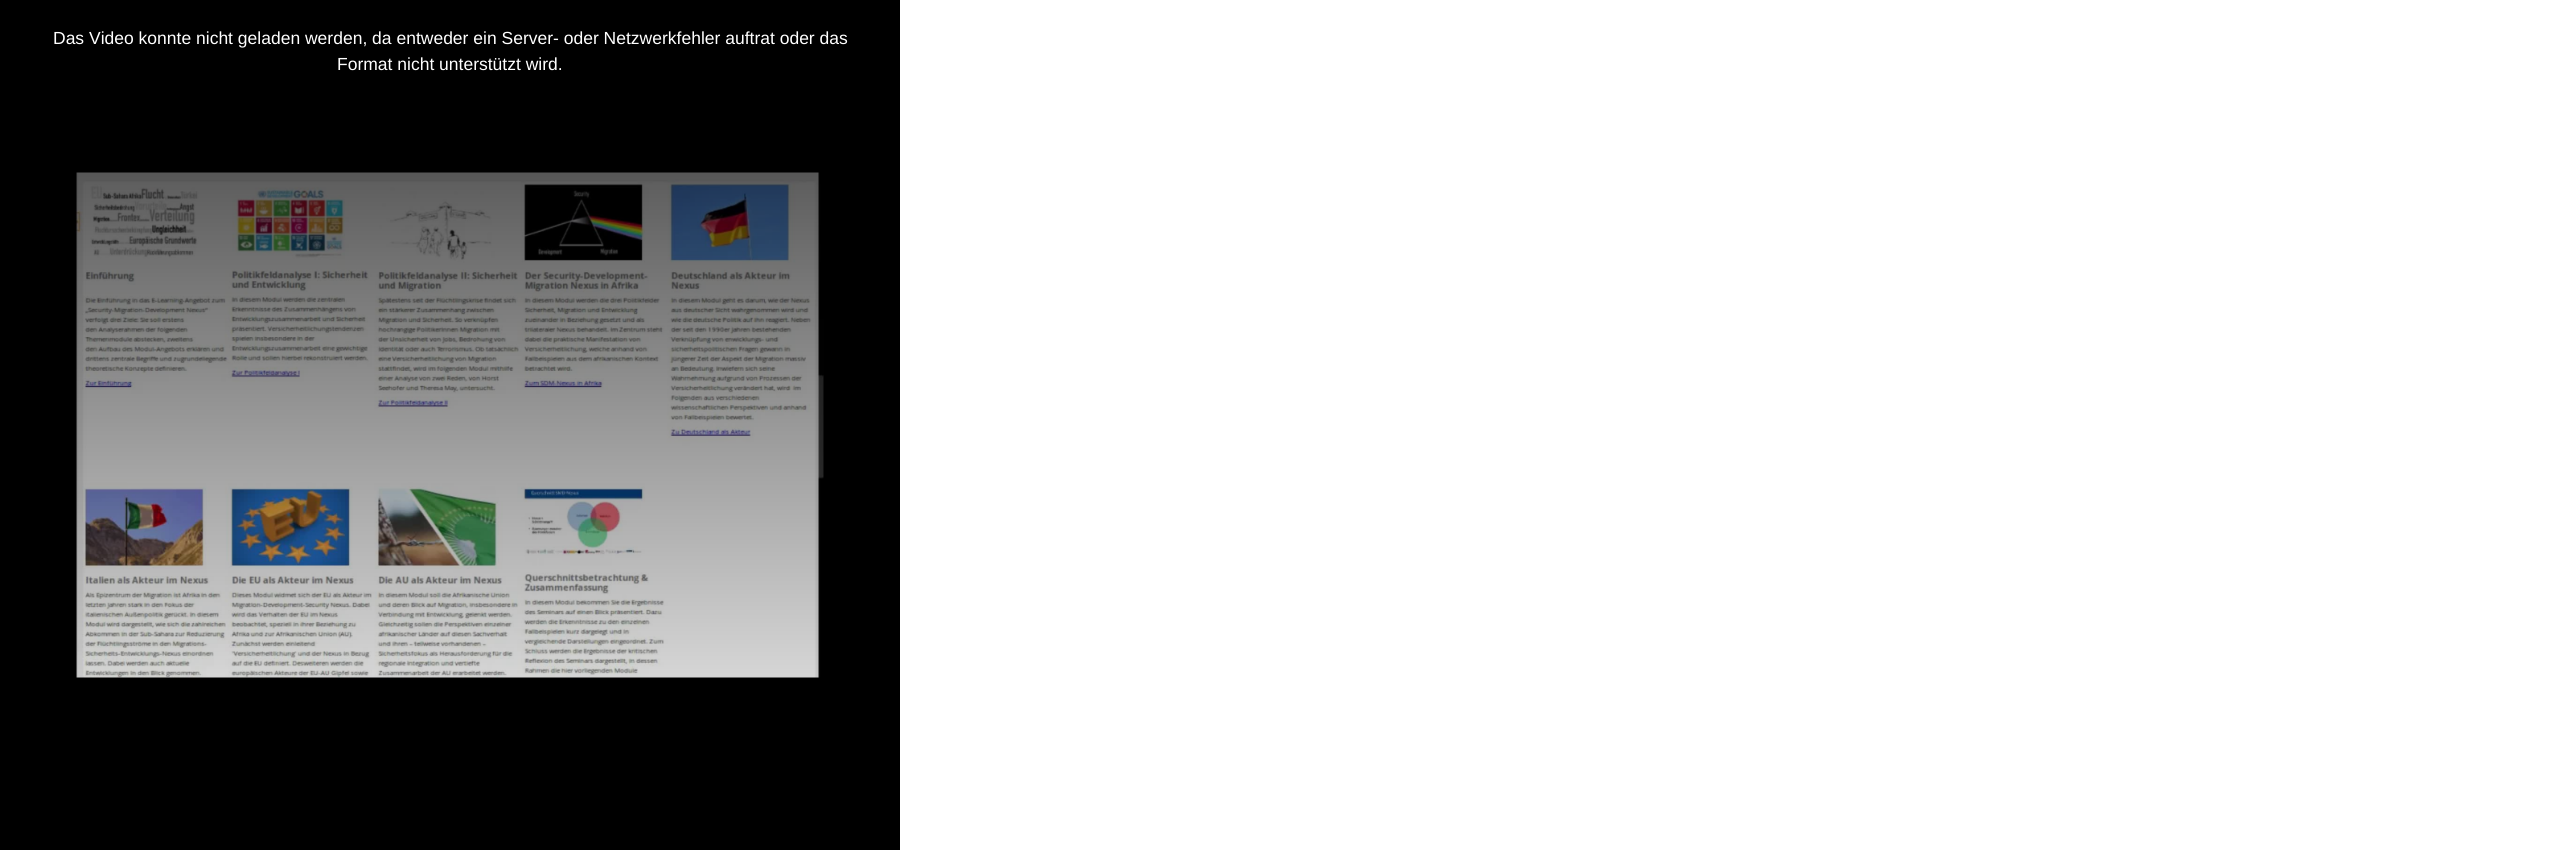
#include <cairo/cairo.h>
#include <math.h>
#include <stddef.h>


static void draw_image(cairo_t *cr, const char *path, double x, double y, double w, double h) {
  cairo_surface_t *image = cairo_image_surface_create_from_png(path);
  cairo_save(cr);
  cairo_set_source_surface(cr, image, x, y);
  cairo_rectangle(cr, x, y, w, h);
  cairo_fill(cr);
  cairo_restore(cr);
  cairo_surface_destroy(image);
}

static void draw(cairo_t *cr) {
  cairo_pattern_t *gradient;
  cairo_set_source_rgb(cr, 1, 1, 1);
  cairo_paint(cr);
  cairo_set_source_rgb(cr, 0, 0, 0);
  cairo_rectangle(cr, 0, 0, 900, 850);
  cairo_fill(cr);
  draw_image(cr, "images/1.png", 75, 172, 749, 506);
  gradient = cairo_pattern_create_linear(450, 0, 450, 850);
  cairo_pattern_add_color_stop_rgba(gradient, 0, 0, 0, 0, 0.8);
  cairo_pattern_add_color_stop_rgba(gradient, 1, 0, 0, 0, 0);
  cairo_set_source(cr, gradient);
  cairo_pattern_destroy(gradient);
  cairo_rectangle(cr, 75, 172, 749, 506);
  cairo_fill(cr);
  cairo_select_font_face(cr, "Liberation Sans", CAIRO_FONT_SLANT_NORMAL, CAIRO_FONT_WEIGHT_NORMAL);
  cairo_set_font_size(cr, 17.5);
  cairo_set_source_rgb(cr, 1, 1, 1);
  cairo_move_to(cr, 53, 44);
  cairo_show_text(cr, "Das Video konnte nicht geladen werden, da entweder ein Server- oder Netzwerkfehler auftrat oder das");
  cairo_move_to(cr, 337, 70);
  cairo_show_text(cr, "Format nicht unterstützt wird.");
}

int main(void) {
  cairo_surface_t *surface = cairo_image_surface_create(CAIRO_FORMAT_RGB24, 2569, 850);
  cairo_t *cr = cairo_create(surface);
  cairo_font_options_t *options = cairo_font_options_create();
  cairo_font_options_set_hint_metrics(options, CAIRO_HINT_METRICS_OFF);
  cairo_font_options_set_hint_style(options, CAIRO_HINT_STYLE_NONE);
  cairo_set_font_options(cr, options);
  cairo_set_miter_limit(cr, 4);
  draw(cr);
  cairo_surface_write_to_png(surface, "out.png");
  cairo_font_options_destroy(options);
  cairo_destroy(cr);
  cairo_surface_destroy(surface);
  return 0;
}
